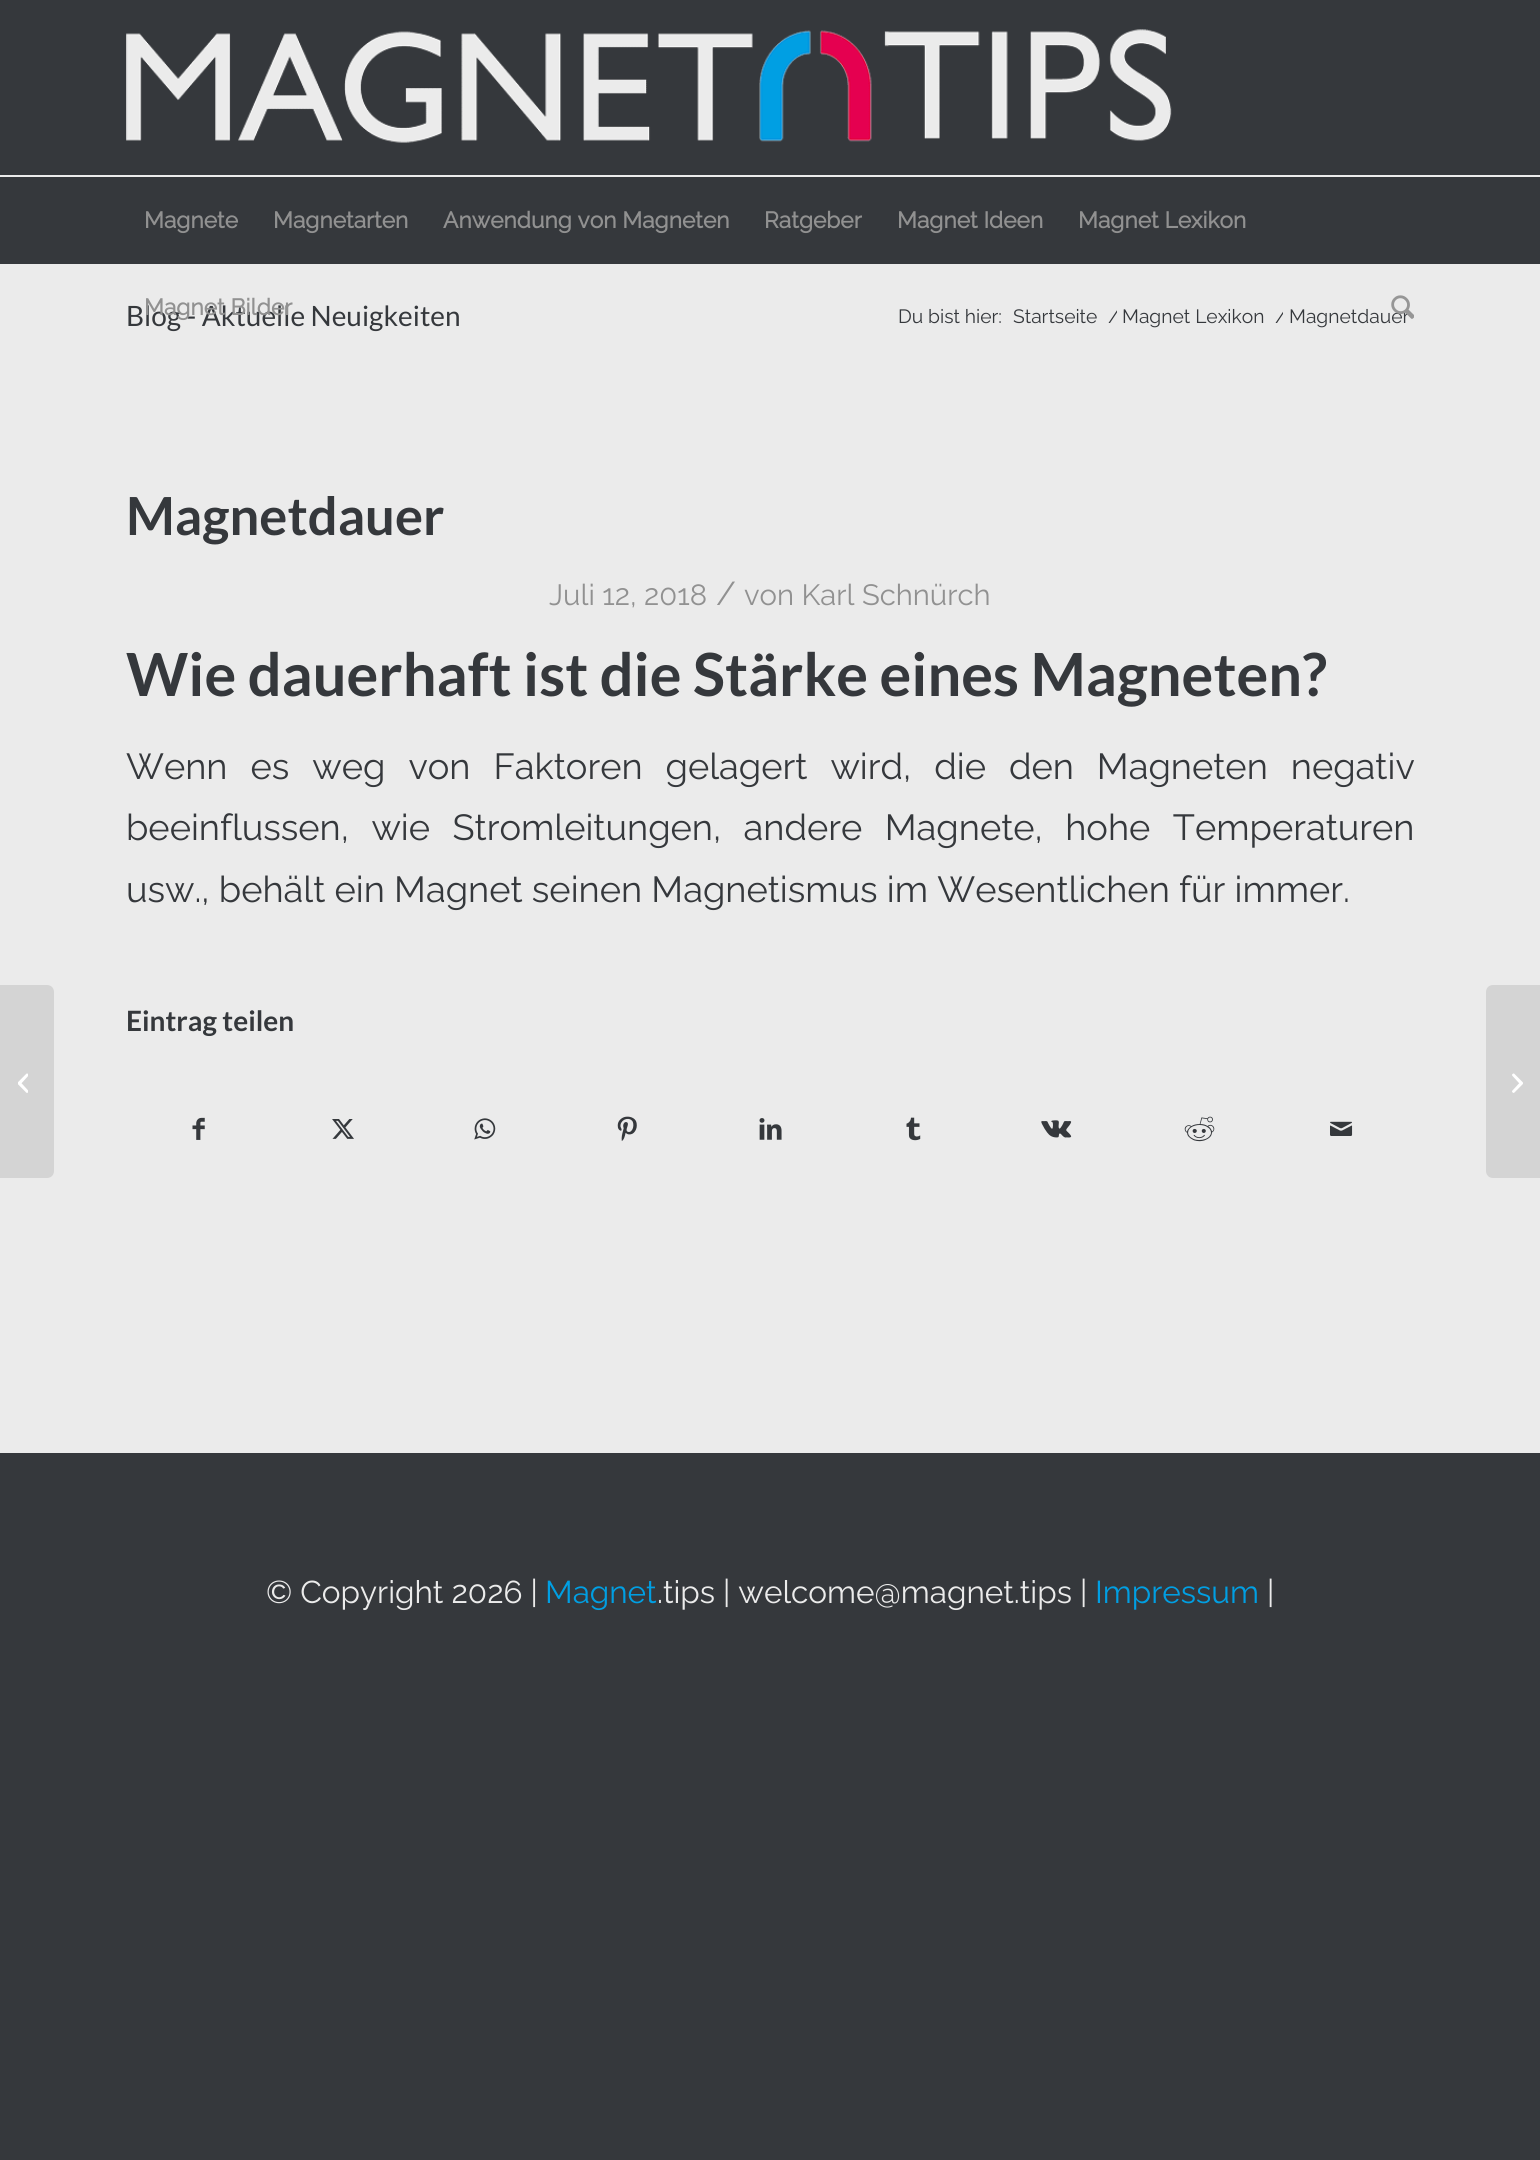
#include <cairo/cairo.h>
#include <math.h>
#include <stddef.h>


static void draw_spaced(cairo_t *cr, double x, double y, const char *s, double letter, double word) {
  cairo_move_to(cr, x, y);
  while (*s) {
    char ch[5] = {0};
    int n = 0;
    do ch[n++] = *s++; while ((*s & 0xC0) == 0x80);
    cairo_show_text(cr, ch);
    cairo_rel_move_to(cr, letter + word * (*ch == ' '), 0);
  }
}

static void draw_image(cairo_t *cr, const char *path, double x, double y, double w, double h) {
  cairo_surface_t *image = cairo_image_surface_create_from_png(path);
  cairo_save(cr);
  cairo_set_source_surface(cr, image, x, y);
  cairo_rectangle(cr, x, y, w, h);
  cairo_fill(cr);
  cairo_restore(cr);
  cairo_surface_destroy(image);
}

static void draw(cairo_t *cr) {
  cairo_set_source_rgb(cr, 53 / 255.0, 56 / 255.0, 60 / 255.0);
  cairo_paint(cr);
  draw_image(cr, "images/1.png", 126, 29, 1046, 114);
  cairo_set_source_rgb(cr, 235 / 255.0, 235 / 255.0, 235 / 255.0);
  cairo_rectangle(cr, 0, 175, 1540, 2);
  cairo_fill(cr);
  cairo_rectangle(cr, 0, 264, 1540, 1189);
  cairo_fill(cr);
  cairo_set_source_rgb(cr, 212 / 255.0, 212 / 255.0, 212 / 255.0);
  cairo_new_path(cr);
  cairo_move_to(cr, 0, 985);
  cairo_line_to(cr, 47, 985);
  cairo_curve_to(cr, 51, 985, 54, 988, 54, 992);
  cairo_line_to(cr, 54, 1171);
  cairo_curve_to(cr, 54, 1175, 51, 1178, 47, 1178);
  cairo_line_to(cr, 0, 1178);
  cairo_close_path(cr);
  cairo_fill(cr);
  draw_image(cr, "images/3.png", 18, 1073, 10, 20);
  draw_image(cr, "images/4.png", 192, 1117, 13, 23);
  draw_image(cr, "images/5.png", 332, 1119, 22, 20);
  draw_image(cr, "images/6.png", 474, 1118, 22, 22);
  draw_image(cr, "images/7.png", 617, 1116, 20, 25);
  draw_image(cr, "images/8.png", 759, 1118, 23, 22);
  draw_image(cr, "images/9.png", 906, 1117, 15, 24);
  draw_image(cr, "images/10.png", 1041, 1120, 31, 18);
  draw_image(cr, "images/11.png", 1184, 1116, 31, 26);
  draw_image(cr, "images/12.png", 1330, 1121, 23, 15);
  cairo_new_path(cr);
  cairo_move_to(cr, 1493, 985);
  cairo_line_to(cr, 1540, 985);
  cairo_line_to(cr, 1540, 1178);
  cairo_line_to(cr, 1493, 1178);
  cairo_curve_to(cr, 1489, 1178, 1486, 1175, 1486, 1171);
  cairo_line_to(cr, 1486, 992);
  cairo_curve_to(cr, 1486, 988, 1489, 985, 1493, 985);
  cairo_close_path(cr);
  cairo_fill(cr);
  draw_image(cr, "images/13.png", 1512, 1073, 11, 20);
  cairo_select_font_face(cr, "Raleway", CAIRO_FONT_SLANT_NORMAL, CAIRO_FONT_WEIGHT_BOLD);
  cairo_set_font_size(cr, 22.75);
  cairo_set_source_rgb(cr, 145 / 255.0, 145 / 255.0, 145 / 255.0);
  cairo_move_to(cr, 144, 228);
  cairo_show_text(cr, "Magnete");
  cairo_move_to(cr, 273, 228);
  cairo_show_text(cr, "Magnetarten");
  cairo_move_to(cr, 443, 228);
  cairo_show_text(cr, "Anwendung von Magneten");
  cairo_move_to(cr, 764, 228);
  cairo_show_text(cr, "Ratgeber");
  cairo_move_to(cr, 897, 228);
  cairo_show_text(cr, "Magnet Ideen");
  cairo_move_to(cr, 1078, 228);
  cairo_show_text(cr, "Magnet Lexikon");
  cairo_select_font_face(cr, "Lato", CAIRO_FONT_SLANT_NORMAL, CAIRO_FONT_WEIGHT_NORMAL);
  cairo_set_font_size(cr, 28);
  cairo_set_source_rgb(cr, 53 / 255.0, 56 / 255.0, 60 / 255.0);
  cairo_move_to(cr, 126, 326);
  cairo_show_text(cr, "Blog - Aktuelle Neuigkeiten");
  cairo_select_font_face(cr, "Raleway", CAIRO_FONT_SLANT_NORMAL, CAIRO_FONT_WEIGHT_BOLD);
  cairo_set_font_size(cr, 22.75);
  cairo_set_source_rgb(cr, 145 / 255.0, 145 / 255.0, 145 / 255.0);
  cairo_move_to(cr, 144, 315);
  cairo_show_text(cr, "Magnet Bilder");
  cairo_select_font_face(cr, "Raleway Thin", CAIRO_FONT_SLANT_NORMAL, CAIRO_FONT_WEIGHT_NORMAL);
  cairo_set_font_size(cr, 19.25);
  cairo_set_source_rgb(cr, 53 / 255.0, 56 / 255.0, 60 / 255.0);
  cairo_move_to(cr, 898, 323);
  cairo_show_text(cr, "Du bist hier:");
  cairo_move_to(cr, 1013, 323);
  cairo_show_text(cr, "Startseite");
  cairo_save(cr);
  cairo_rectangle(cr, 1103, 303, 14, 26);
  cairo_clip(cr);
  cairo_move_to(cr, 1108, 323);
  cairo_show_text(cr, "/");
  cairo_restore(cr);
  cairo_move_to(cr, 1122, 323);
  cairo_show_text(cr, "Magnet Lexikon");
  cairo_save(cr);
  cairo_rectangle(cr, 1269, 303, 14, 26);
  cairo_clip(cr);
  cairo_move_to(cr, 1275, 323);
  cairo_show_text(cr, "/");
  cairo_restore(cr);
  cairo_move_to(cr, 1289, 323);
  cairo_show_text(cr, "Magnetdauer");
  draw_image(cr, "images/2.png", 1391, 295, 23, 24);
  cairo_select_font_face(cr, "Lato", CAIRO_FONT_SLANT_NORMAL, CAIRO_FONT_WEIGHT_BOLD);
  cairo_set_font_size(cr, 52.5);
  cairo_move_to(cr, 126, 535);
  cairo_show_text(cr, "Magnetdauer");
  cairo_select_font_face(cr, "Raleway Thin", CAIRO_FONT_SLANT_NORMAL, CAIRO_FONT_WEIGHT_NORMAL);
  cairo_set_font_size(cr, 29.25);
  cairo_set_source_rgb(cr, 145 / 255.0, 145 / 255.0, 145 / 255.0);
  cairo_move_to(cr, 549, 605);
  cairo_show_text(cr, "Juli 12, 2018");
  cairo_set_font_size(cr, 33);
  cairo_move_to(cr, 716, 605);
  cairo_show_text(cr, "/");
  cairo_set_font_size(cr, 29.25);
  cairo_move_to(cr, 744, 605);
  cairo_show_text(cr, "von Karl Schnürch");
  cairo_select_font_face(cr, "Lato", CAIRO_FONT_SLANT_NORMAL, CAIRO_FONT_WEIGHT_BOLD);
  cairo_set_font_size(cr, 59.5);
  cairo_set_source_rgb(cr, 53 / 255.0, 56 / 255.0, 60 / 255.0);
  cairo_move_to(cr, 126, 696);
  cairo_show_text(cr, "Wie dauerhaft ist die Stärke eines Magneten?");
  cairo_select_font_face(cr, "Raleway Thin", CAIRO_FONT_SLANT_NORMAL, CAIRO_FONT_WEIGHT_NORMAL);
  cairo_set_font_size(cr, 36.25);
  draw_spaced(cr, 126, 779, "Wenn es weg von Faktoren gelagert wird, die den Magneten negativ", 0, 13.75);
  draw_spaced(cr, 126, 840, "beeinflussen, wie Stromleitungen, andere Magnete, hohe Temperaturen", 0, 13.25);
  cairo_move_to(cr, 126, 902);
  cairo_show_text(cr, "usw., behält ein Magnet seinen Magnetismus im Wesentlichen für immer.");
  cairo_select_font_face(cr, "Lato", CAIRO_FONT_SLANT_NORMAL, CAIRO_FONT_WEIGHT_BOLD);
  cairo_set_font_size(cr, 28);
  cairo_move_to(cr, 126, 1031);
  cairo_show_text(cr, "Eintrag teilen");
  cairo_select_font_face(cr, "Raleway Thin", CAIRO_FONT_SLANT_NORMAL, CAIRO_FONT_WEIGHT_NORMAL);
  cairo_set_font_size(cr, 31.5);
  cairo_set_source_rgb(cr, 235 / 255.0, 235 / 255.0, 235 / 255.0);
  cairo_move_to(cr, 266, 1603);
  cairo_show_text(cr, "© Copyright 2026 |");
  cairo_set_source_rgb(cr, 0, 159 / 255.0, 227 / 255.0);
  cairo_move_to(cr, 545, 1603);
  cairo_show_text(cr, "Magnet");
  cairo_set_source_rgb(cr, 235 / 255.0, 235 / 255.0, 235 / 255.0);
  cairo_move_to(cr, 657, 1603);
  cairo_show_text(cr, ".tips | welcome@magnet.tips |");
  cairo_set_source_rgb(cr, 0, 159 / 255.0, 227 / 255.0);
  cairo_move_to(cr, 1095, 1603);
  cairo_show_text(cr, "Impressum");
  cairo_set_source_rgb(cr, 235 / 255.0, 235 / 255.0, 235 / 255.0);
  cairo_move_to(cr, 1267, 1603);
  cairo_show_text(cr, "|");
}

int main(void) {
  cairo_surface_t *surface = cairo_image_surface_create(CAIRO_FORMAT_RGB24, 1540, 2160);
  cairo_t *cr = cairo_create(surface);
  cairo_font_options_t *options = cairo_font_options_create();
  cairo_font_options_set_hint_metrics(options, CAIRO_HINT_METRICS_OFF);
  cairo_font_options_set_hint_style(options, CAIRO_HINT_STYLE_NONE);
  cairo_set_font_options(cr, options);
  cairo_set_miter_limit(cr, 4);
  draw(cr);
  cairo_surface_write_to_png(surface, "out.png");
  cairo_font_options_destroy(options);
  cairo_destroy(cr);
  cairo_surface_destroy(surface);
  return 0;
}
